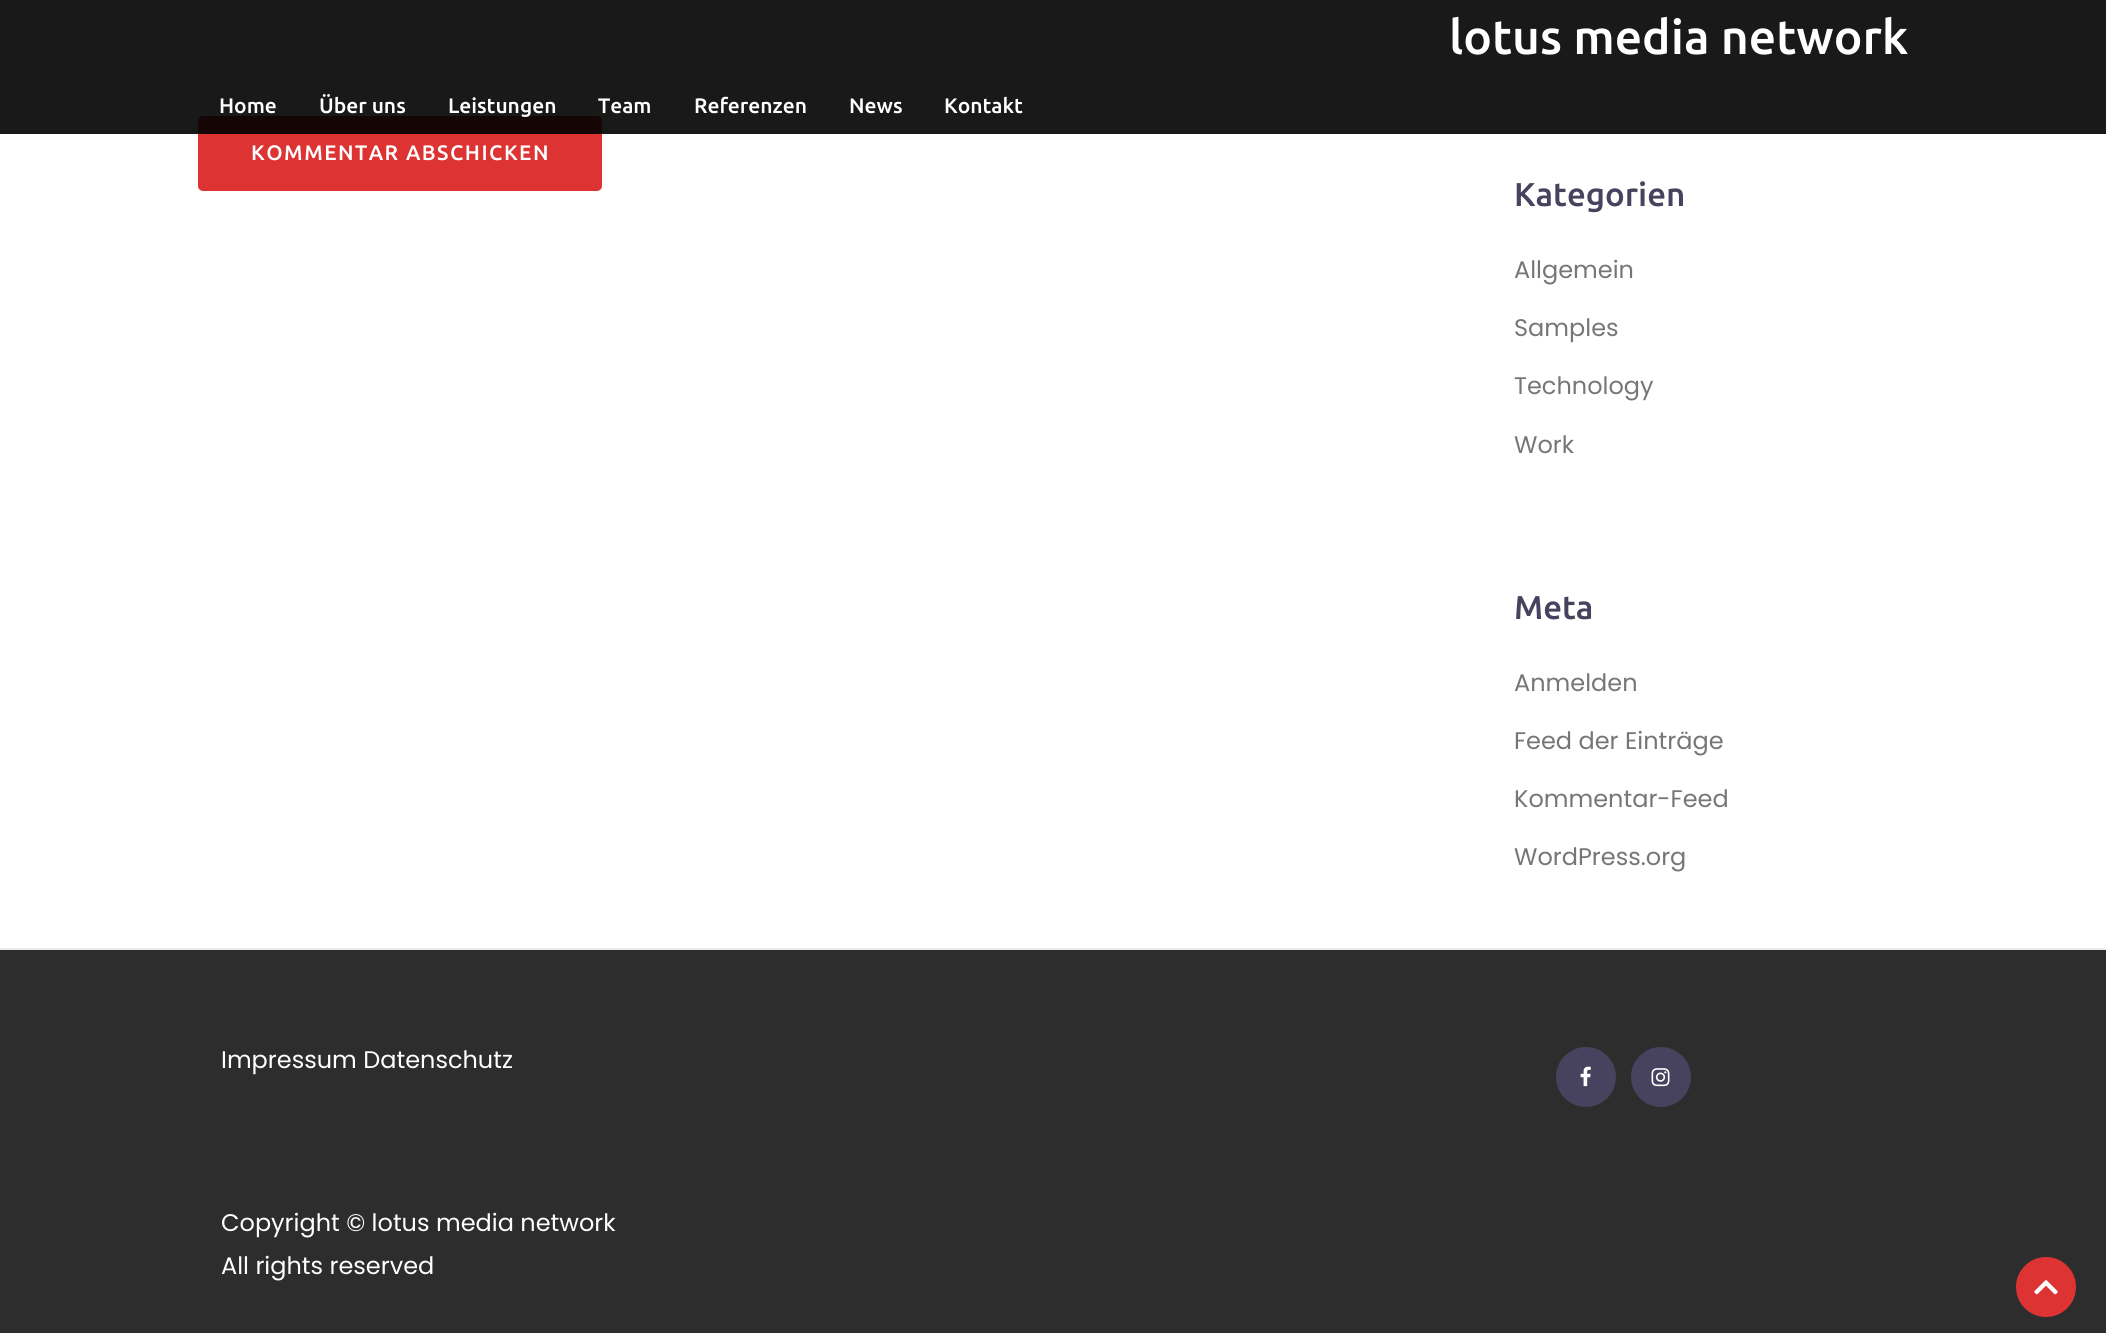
#include <cairo/cairo.h>
#include <math.h>
#include <stddef.h>


static void draw_spaced(cairo_t *cr, double x, double y, const char *s, double letter, double word) {
  cairo_move_to(cr, x, y);
  while (*s) {
    char ch[5] = {0};
    int n = 0;
    do ch[n++] = *s++; while ((*s & 0xC0) == 0x80);
    cairo_show_text(cr, ch);
    cairo_rel_move_to(cr, letter + word * (*ch == ' '), 0);
  }
}

static void rounded_rect(cairo_t *cr, double x, double y, double w, double h, double r) {
  cairo_new_sub_path(cr);
  cairo_arc(cr, x + w - r, y + h - r, r, 0, M_PI / 2);
  cairo_arc(cr, x + r, y + h - r, r, M_PI / 2, M_PI);
  cairo_arc(cr, x + r, y + r, r, M_PI, 1.5 * M_PI);
  cairo_arc(cr, x + w - r, y + r, r, 1.5 * M_PI, 2 * M_PI);
  cairo_close_path(cr);
}

static void draw_image(cairo_t *cr, const char *path, double x, double y, double w, double h) {
  cairo_surface_t *image = cairo_image_surface_create_from_png(path);
  cairo_save(cr);
  cairo_set_source_surface(cr, image, x, y);
  cairo_rectangle(cr, x, y, w, h);
  cairo_fill(cr);
  cairo_restore(cr);
  cairo_surface_destroy(image);
}

static void draw(cairo_t *cr) {
  cairo_set_source_rgb(cr, 1, 1, 1);
  cairo_paint(cr);
  cairo_set_source_rgb(cr, 221 / 255.0, 51 / 255.0, 51 / 255.0);
  rounded_rect(cr, 199, 117, 402, 73, 4);
  cairo_fill_preserve(cr);
  cairo_stroke(cr);
  cairo_set_source_rgba(cr, 0, 0, 0, 0.9);
  cairo_rectangle(cr, 0, 0, 2106, 134);
  cairo_fill(cr);
  cairo_set_source_rgb(cr, 45 / 255.0, 45 / 255.0, 45 / 255.0);
  cairo_rectangle(cr, 0, 950, 2106, 383);
  cairo_fill(cr);
  cairo_set_source_rgb(cr, 235 / 255.0, 235 / 255.0, 235 / 255.0);
  cairo_rectangle(cr, 0, 948, 2106, 2);
  cairo_fill(cr);
  cairo_set_source_rgb(cr, 71 / 255.0, 66 / 255.0, 93 / 255.0);
  cairo_arc(cr, 1586, 1077, 30, 0, 2 * M_PI);
  cairo_fill(cr);
  draw_image(cr, "images/1.png", 1580, 1066, 11, 21);
  cairo_arc(cr, 1661, 1077, 30, 0, 2 * M_PI);
  cairo_fill(cr);
  draw_image(cr, "images/2.png", 1651, 1068, 19, 19);
  cairo_set_source_rgb(cr, 221 / 255.0, 51 / 255.0, 51 / 255.0);
  cairo_arc(cr, 2046, 1287, 30, 0, 2 * M_PI);
  cairo_fill(cr);
  draw_image(cr, "images/3.png", 2034, 1280, 24, 15);
  cairo_select_font_face(cr, "Ubuntu Medium", CAIRO_FONT_SLANT_NORMAL, CAIRO_FONT_WEIGHT_NORMAL);
  cairo_set_font_size(cr, 48);
  cairo_set_source_rgb(cr, 1, 1, 1);
  cairo_move_to(cr, 1449, 54);
  cairo_show_text(cr, "lotus media network");
  cairo_set_font_size(cr, 21);
  cairo_move_to(cr, 219, 113);
  cairo_show_text(cr, "Home");
  cairo_move_to(cr, 319, 113);
  cairo_show_text(cr, "Über uns");
  cairo_move_to(cr, 448, 113);
  cairo_show_text(cr, "Leistungen");
  cairo_move_to(cr, 598, 113);
  cairo_show_text(cr, "Team");
  cairo_move_to(cr, 694, 113);
  cairo_show_text(cr, "Referenzen");
  cairo_move_to(cr, 849, 113);
  cairo_show_text(cr, "News");
  cairo_move_to(cr, 944, 113);
  cairo_show_text(cr, "Kontakt");
  draw_spaced(cr, 251, 160, "KOMMENTAR ABSCHICKEN", 1.5, 0);
  cairo_set_font_size(cr, 33);
  cairo_set_source_rgb(cr, 71 / 255.0, 66 / 255.0, 93 / 255.0);
  cairo_move_to(cr, 1514, 206);
  cairo_show_text(cr, "Kategorien");
  cairo_select_font_face(cr, "Poppins", CAIRO_FONT_SLANT_NORMAL, CAIRO_FONT_WEIGHT_NORMAL);
  cairo_set_font_size(cr, 24);
  cairo_set_source_rgb(cr, 118 / 255.0, 118 / 255.0, 118 / 255.0);
  cairo_move_to(cr, 1514, 278);
  cairo_show_text(cr, "Allgemein");
  cairo_move_to(cr, 1514, 336);
  cairo_show_text(cr, "Samples");
  cairo_move_to(cr, 1514, 394);
  cairo_show_text(cr, "Technology");
  cairo_move_to(cr, 1514, 453);
  cairo_show_text(cr, "Work");
  cairo_select_font_face(cr, "Ubuntu Medium", CAIRO_FONT_SLANT_NORMAL, CAIRO_FONT_WEIGHT_NORMAL);
  cairo_set_font_size(cr, 33);
  cairo_set_source_rgb(cr, 71 / 255.0, 66 / 255.0, 93 / 255.0);
  cairo_move_to(cr, 1514, 619);
  cairo_show_text(cr, "Meta");
  cairo_select_font_face(cr, "Poppins", CAIRO_FONT_SLANT_NORMAL, CAIRO_FONT_WEIGHT_NORMAL);
  cairo_set_font_size(cr, 24);
  cairo_set_source_rgb(cr, 118 / 255.0, 118 / 255.0, 118 / 255.0);
  cairo_move_to(cr, 1514, 691);
  cairo_show_text(cr, "Anmelden");
  cairo_move_to(cr, 1514, 749);
  cairo_show_text(cr, "Feed der Einträge");
  cairo_move_to(cr, 1514, 807);
  cairo_show_text(cr, "Kommentar-Feed");
  cairo_move_to(cr, 1514, 865);
  cairo_show_text(cr, "WordPress.org");
  cairo_set_source_rgb(cr, 1, 1, 1);
  cairo_move_to(cr, 221, 1068);
  cairo_show_text(cr, "Impressum Datenschutz");
  cairo_move_to(cr, 221, 1231);
  cairo_show_text(cr, "Copyright © lotus media network");
  cairo_move_to(cr, 221, 1274);
  cairo_show_text(cr, "All rights reserved");
}

int main(void) {
  cairo_surface_t *surface = cairo_image_surface_create(CAIRO_FORMAT_RGB24, 2106, 1333);
  cairo_t *cr = cairo_create(surface);
  cairo_font_options_t *options = cairo_font_options_create();
  cairo_font_options_set_hint_metrics(options, CAIRO_HINT_METRICS_OFF);
  cairo_font_options_set_hint_style(options, CAIRO_HINT_STYLE_NONE);
  cairo_set_font_options(cr, options);
  cairo_set_miter_limit(cr, 4);
  draw(cr);
  cairo_surface_write_to_png(surface, "out.png");
  cairo_font_options_destroy(options);
  cairo_destroy(cr);
  cairo_surface_destroy(surface);
  return 0;
}
